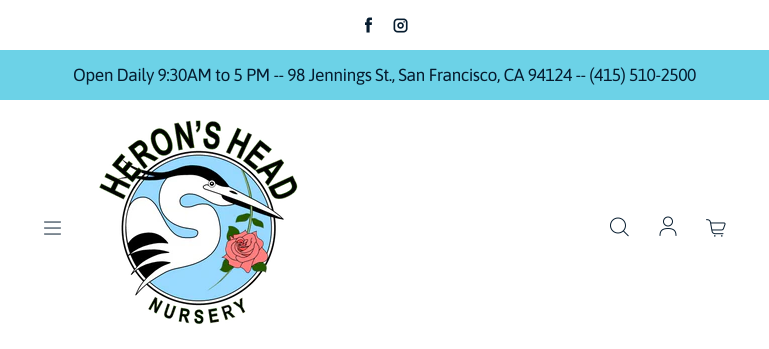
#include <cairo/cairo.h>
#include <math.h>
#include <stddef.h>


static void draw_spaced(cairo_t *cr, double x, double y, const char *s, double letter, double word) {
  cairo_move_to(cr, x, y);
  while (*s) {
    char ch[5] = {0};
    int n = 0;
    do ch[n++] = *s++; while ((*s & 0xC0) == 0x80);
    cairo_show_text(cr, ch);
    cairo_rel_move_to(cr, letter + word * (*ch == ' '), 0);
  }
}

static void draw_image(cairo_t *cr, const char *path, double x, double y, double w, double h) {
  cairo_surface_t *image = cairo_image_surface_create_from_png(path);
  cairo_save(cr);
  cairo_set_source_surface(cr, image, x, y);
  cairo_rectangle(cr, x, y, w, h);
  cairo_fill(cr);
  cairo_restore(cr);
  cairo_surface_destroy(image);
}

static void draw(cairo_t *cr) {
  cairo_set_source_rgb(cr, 1, 1, 1);
  cairo_paint(cr);
  draw_image(cr, "images/1.png", 365, 17, 7, 16);
  draw_image(cr, "images/2.png", 393, 18, 15, 15);
  cairo_set_source_rgb(cr, 108 / 255.0, 210 / 255.0, 231 / 255.0);
  cairo_rectangle(cr, 0, 50, 769, 50);
  cairo_fill(cr);
  draw_image(cr, "images/3.png", 44, 221, 17, 14);
  draw_image(cr, "images/4.png", 99, 120, 199, 205);
  draw_image(cr, "images/5.png", 610, 217, 19, 20);
  draw_image(cr, "images/6.png", 659, 216, 18, 20);
  draw_image(cr, "images/7.png", 706, 219, 20, 18);
  cairo_select_font_face(cr, "Asap", CAIRO_FONT_SLANT_NORMAL, CAIRO_FONT_WEIGHT_NORMAL);
  cairo_set_font_size(cr, 17.5);
  cairo_set_source_rgb(cr, 6 / 255.0, 28 / 255.0, 47 / 255.0);
  draw_spaced(cr, 73, 81, "Open Daily 9:30AM to 5 PM -- 98 Jennings St., San Francisco, CA 94124 -- (415) 510-2500", -0.53, 0);
}

int main(void) {
  cairo_surface_t *surface = cairo_image_surface_create(CAIRO_FORMAT_RGB24, 769, 349);
  cairo_t *cr = cairo_create(surface);
  cairo_font_options_t *options = cairo_font_options_create();
  cairo_font_options_set_hint_metrics(options, CAIRO_HINT_METRICS_OFF);
  cairo_font_options_set_hint_style(options, CAIRO_HINT_STYLE_NONE);
  cairo_set_font_options(cr, options);
  cairo_set_miter_limit(cr, 4);
  draw(cr);
  cairo_surface_write_to_png(surface, "out.png");
  cairo_font_options_destroy(options);
  cairo_destroy(cr);
  cairo_surface_destroy(surface);
  return 0;
}
